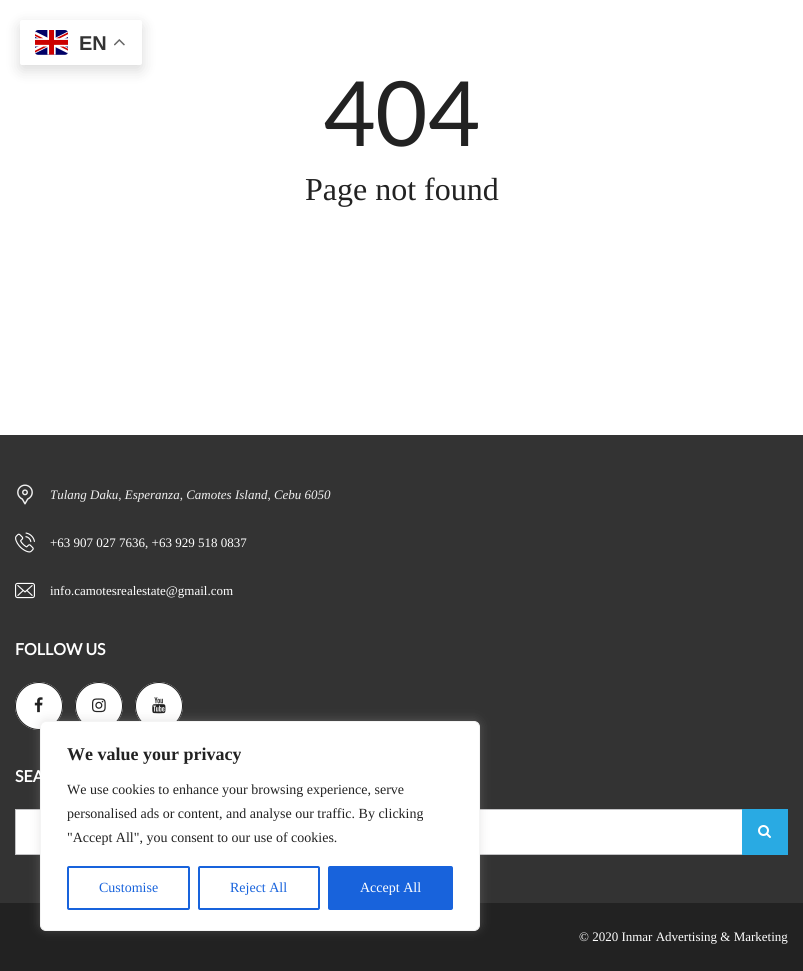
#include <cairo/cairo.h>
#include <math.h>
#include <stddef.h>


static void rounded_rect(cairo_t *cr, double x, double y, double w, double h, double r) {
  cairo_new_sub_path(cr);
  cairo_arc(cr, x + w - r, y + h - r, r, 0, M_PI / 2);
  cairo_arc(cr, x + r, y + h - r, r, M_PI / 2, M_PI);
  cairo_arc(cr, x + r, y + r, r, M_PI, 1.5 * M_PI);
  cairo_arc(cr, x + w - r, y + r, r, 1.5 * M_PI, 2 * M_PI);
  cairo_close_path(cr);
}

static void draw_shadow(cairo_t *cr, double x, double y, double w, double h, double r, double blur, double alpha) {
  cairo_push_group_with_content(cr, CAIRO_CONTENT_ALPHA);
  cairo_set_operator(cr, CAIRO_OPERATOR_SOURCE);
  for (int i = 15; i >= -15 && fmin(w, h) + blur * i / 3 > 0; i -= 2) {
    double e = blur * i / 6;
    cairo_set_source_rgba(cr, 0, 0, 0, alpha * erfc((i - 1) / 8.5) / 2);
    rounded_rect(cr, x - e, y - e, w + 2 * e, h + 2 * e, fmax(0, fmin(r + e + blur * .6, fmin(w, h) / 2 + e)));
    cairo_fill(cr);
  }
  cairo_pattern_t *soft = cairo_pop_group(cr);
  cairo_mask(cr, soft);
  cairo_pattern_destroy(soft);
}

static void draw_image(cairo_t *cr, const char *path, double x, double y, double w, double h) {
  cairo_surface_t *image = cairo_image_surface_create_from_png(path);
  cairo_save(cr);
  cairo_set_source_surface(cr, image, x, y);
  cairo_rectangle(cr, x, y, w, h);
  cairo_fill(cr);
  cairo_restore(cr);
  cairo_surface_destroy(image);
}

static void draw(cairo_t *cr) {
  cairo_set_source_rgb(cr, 1, 1, 1);
  cairo_paint(cr);
  cairo_set_source_rgb(cr, 0, 0, 0);
  draw_shadow(cr, 20, 25, 122, 45, 2, 7.5, 0.15);
  cairo_set_source_rgb(cr, 1, 1, 1);
  rounded_rect(cr, 20, 20, 122, 45, 2);
  cairo_fill(cr);
  draw_image(cr, "images/1.png", 35, 30, 33, 25);
  draw_image(cr, "images/2.png", 114, 39, 11, 7);
  cairo_set_source_rgb(cr, 51 / 255.0, 51 / 255.0, 51 / 255.0);
  cairo_rectangle(cr, 0, 435, 803, 468);
  cairo_fill(cr);
  draw_image(cr, "images/3.png", 17, 484, 16, 21);
  draw_image(cr, "images/4.png", 15, 532, 20, 21);
  draw_image(cr, "images/5.png", 15, 582, 20, 17);
  cairo_set_source_rgb(cr, 1, 1, 1);
  cairo_arc(cr, 39, 706, 24, 0, 2 * M_PI);
  cairo_fill(cr);
  draw_image(cr, "images/6.png", 34, 697, 9, 16);
  cairo_arc(cr, 39, 706, 23.5, 0, 2 * M_PI);
  cairo_set_source_rgb(cr, 34 / 255.0, 34 / 255.0, 34 / 255.0);
  cairo_set_line_width(cr, 1);
  cairo_stroke(cr);
  cairo_set_source_rgb(cr, 1, 1, 1);
  cairo_arc(cr, 99, 706, 24, 0, 2 * M_PI);
  cairo_fill(cr);
  draw_image(cr, "images/7.png", 92, 698, 14, 15);
  cairo_arc(cr, 99, 706, 23.5, 0, 2 * M_PI);
  cairo_set_source_rgb(cr, 34 / 255.0, 34 / 255.0, 34 / 255.0);
  cairo_stroke(cr);
  cairo_set_source_rgb(cr, 1, 1, 1);
  cairo_arc(cr, 159, 706, 24, 0, 2 * M_PI);
  cairo_fill(cr);
  draw_image(cr, "images/8.png", 152, 697, 14, 17);
  cairo_arc(cr, 159, 706, 23.5, 0, 2 * M_PI);
  cairo_set_source_rgb(cr, 34 / 255.0, 34 / 255.0, 34 / 255.0);
  cairo_stroke(cr);
  cairo_set_source_rgb(cr, 1, 1, 1);
  cairo_rectangle(cr, 16, 810, 726, 44);
  cairo_fill(cr);
  cairo_set_source_rgb(cr, 195 / 255.0, 195 / 255.0, 197 / 255.0);
  cairo_rectangle(cr, 15, 809, 727, 1);
  cairo_fill(cr);
  cairo_rectangle(cr, 15, 854, 727, 1);
  cairo_fill(cr);
  cairo_rectangle(cr, 15, 809, 1, 46);
  cairo_fill(cr);
  cairo_set_source_rgb(cr, 41 / 255.0, 170 / 255.0, 227 / 255.0);
  cairo_rectangle(cr, 742, 809, 46, 46);
  cairo_fill(cr);
  draw_image(cr, "images/9.png", 758, 825, 13, 13);
  cairo_set_source_rgb(cr, 34 / 255.0, 34 / 255.0, 34 / 255.0);
  cairo_rectangle(cr, 0, 903, 803, 68);
  cairo_fill(cr);
  cairo_set_source_rgb(cr, 172 / 255.0, 171 / 255.0, 171 / 255.0);
  draw_shadow(cr, 40, 720, 440, 210, 6, 5, 0.3);
  cairo_set_source_rgb(cr, 1, 1, 1);
  rounded_rect(cr, 40.5, 721.5, 439, 209, 5.5);
  cairo_fill_preserve(cr);
  cairo_set_source_rgb(cr, 244 / 255.0, 244 / 255.0, 244 / 255.0);
  cairo_stroke(cr);
  rounded_rect(cr, 68, 867, 121, 42, 1);
  cairo_set_source_rgb(cr, 24 / 255.0, 99 / 255.0, 220 / 255.0);
  cairo_set_line_width(cr, 2);
  cairo_stroke(cr);
  rounded_rect(cr, 199, 867, 120, 42, 1);
  cairo_stroke(cr);
  rounded_rect(cr, 329, 867, 123, 42, 1);
  cairo_fill_preserve(cr);
  cairo_stroke(cr);
  cairo_select_font_face(cr, "Liberation Sans", CAIRO_FONT_SLANT_NORMAL, CAIRO_FONT_WEIGHT_BOLD);
  cairo_set_font_size(cr, 20);
  cairo_set_source_rgb(cr, 51 / 255.0, 51 / 255.0, 51 / 255.0);
  cairo_move_to(cr, 79, 50);
  cairo_show_text(cr, "EN");
  cairo_select_font_face(cr, "Lato", CAIRO_FONT_SLANT_NORMAL, CAIRO_FONT_WEIGHT_NORMAL);
  cairo_set_font_size(cr, 90);
  cairo_set_source_rgb(cr, 34 / 255.0, 34 / 255.0, 34 / 255.0);
  cairo_move_to(cr, 323, 146);
  cairo_show_text(cr, "404");
  cairo_select_font_face(cr, "Liberation Serif", CAIRO_FONT_SLANT_NORMAL, CAIRO_FONT_WEIGHT_NORMAL);
  cairo_set_font_size(cr, 32);
  cairo_move_to(cr, 305, 200);
  cairo_show_text(cr, "Page not found");
  cairo_select_font_face(cr, "Liberation Serif", CAIRO_FONT_SLANT_ITALIC, CAIRO_FONT_WEIGHT_NORMAL);
  cairo_set_font_size(cr, 13);
  cairo_set_source_rgb(cr, 240 / 255.0, 240 / 255.0, 240 / 255.0);
  cairo_move_to(cr, 50, 499);
  cairo_show_text(cr, "Tulang Daku, Esperanza, Camotes Island, Cebu 6050");
  cairo_select_font_face(cr, "Liberation Serif", CAIRO_FONT_SLANT_NORMAL, CAIRO_FONT_WEIGHT_NORMAL);
  cairo_set_source_rgb(cr, 1, 1, 1);
  cairo_move_to(cr, 50, 547);
  cairo_show_text(cr, "+63 907 027 7636, +63 929 518 0837");
  cairo_move_to(cr, 50, 595);
  cairo_show_text(cr, "info.camotesrealestate@gmail.com");
  cairo_select_font_face(cr, "Lato", CAIRO_FONT_SLANT_NORMAL, CAIRO_FONT_WEIGHT_BOLD);
  cairo_set_font_size(cr, 16);
  cairo_move_to(cr, 15, 655);
  cairo_show_text(cr, "FOLLOW US");
  cairo_move_to(cr, 15, 782);
  cairo_show_text(cr, "SEA");
  cairo_select_font_face(cr, "Liberation Serif", CAIRO_FONT_SLANT_NORMAL, CAIRO_FONT_WEIGHT_NORMAL);
  cairo_set_font_size(cr, 13);
  cairo_move_to(cr, 579, 941);
  cairo_show_text(cr, "© 2020 Inmar Advertising & Marketing");
  cairo_select_font_face(cr, "Liberation Serif", CAIRO_FONT_SLANT_NORMAL, CAIRO_FONT_WEIGHT_BOLD);
  cairo_set_font_size(cr, 18);
  cairo_set_source_rgb(cr, 34 / 255.0, 34 / 255.0, 34 / 255.0);
  cairo_move_to(cr, 67, 760);
  cairo_show_text(cr, "We value your privacy");
  cairo_select_font_face(cr, "Liberation Serif", CAIRO_FONT_SLANT_NORMAL, CAIRO_FONT_WEIGHT_NORMAL);
  cairo_set_font_size(cr, 14);
  cairo_move_to(cr, 67, 794);
  cairo_show_text(cr, "We use cookies to enhance your browsing experience, serve");
  cairo_move_to(cr, 67, 818);
  cairo_show_text(cr, "personalised ads or content, and analyse our traffic. By clicking");
  cairo_move_to(cr, 67, 842);
  cairo_show_text(cr, "\"Accept All\", you consent to our use of cookies.");
  cairo_set_source_rgb(cr, 24 / 255.0, 99 / 255.0, 220 / 255.0);
  cairo_move_to(cr, 99, 892);
  cairo_show_text(cr, "Customise");
  cairo_move_to(cr, 230, 892);
  cairo_show_text(cr, "Reject All");
  cairo_set_source_rgb(cr, 1, 1, 1);
  cairo_move_to(cr, 360, 892);
  cairo_show_text(cr, "Accept All");
}

int main(void) {
  cairo_surface_t *surface = cairo_image_surface_create(CAIRO_FORMAT_RGB24, 803, 971);
  cairo_t *cr = cairo_create(surface);
  cairo_font_options_t *options = cairo_font_options_create();
  cairo_font_options_set_hint_metrics(options, CAIRO_HINT_METRICS_OFF);
  cairo_font_options_set_hint_style(options, CAIRO_HINT_STYLE_NONE);
  cairo_set_font_options(cr, options);
  cairo_set_miter_limit(cr, 4);
  draw(cr);
  cairo_surface_write_to_png(surface, "out.png");
  cairo_font_options_destroy(options);
  cairo_destroy(cr);
  cairo_surface_destroy(surface);
  return 0;
}
